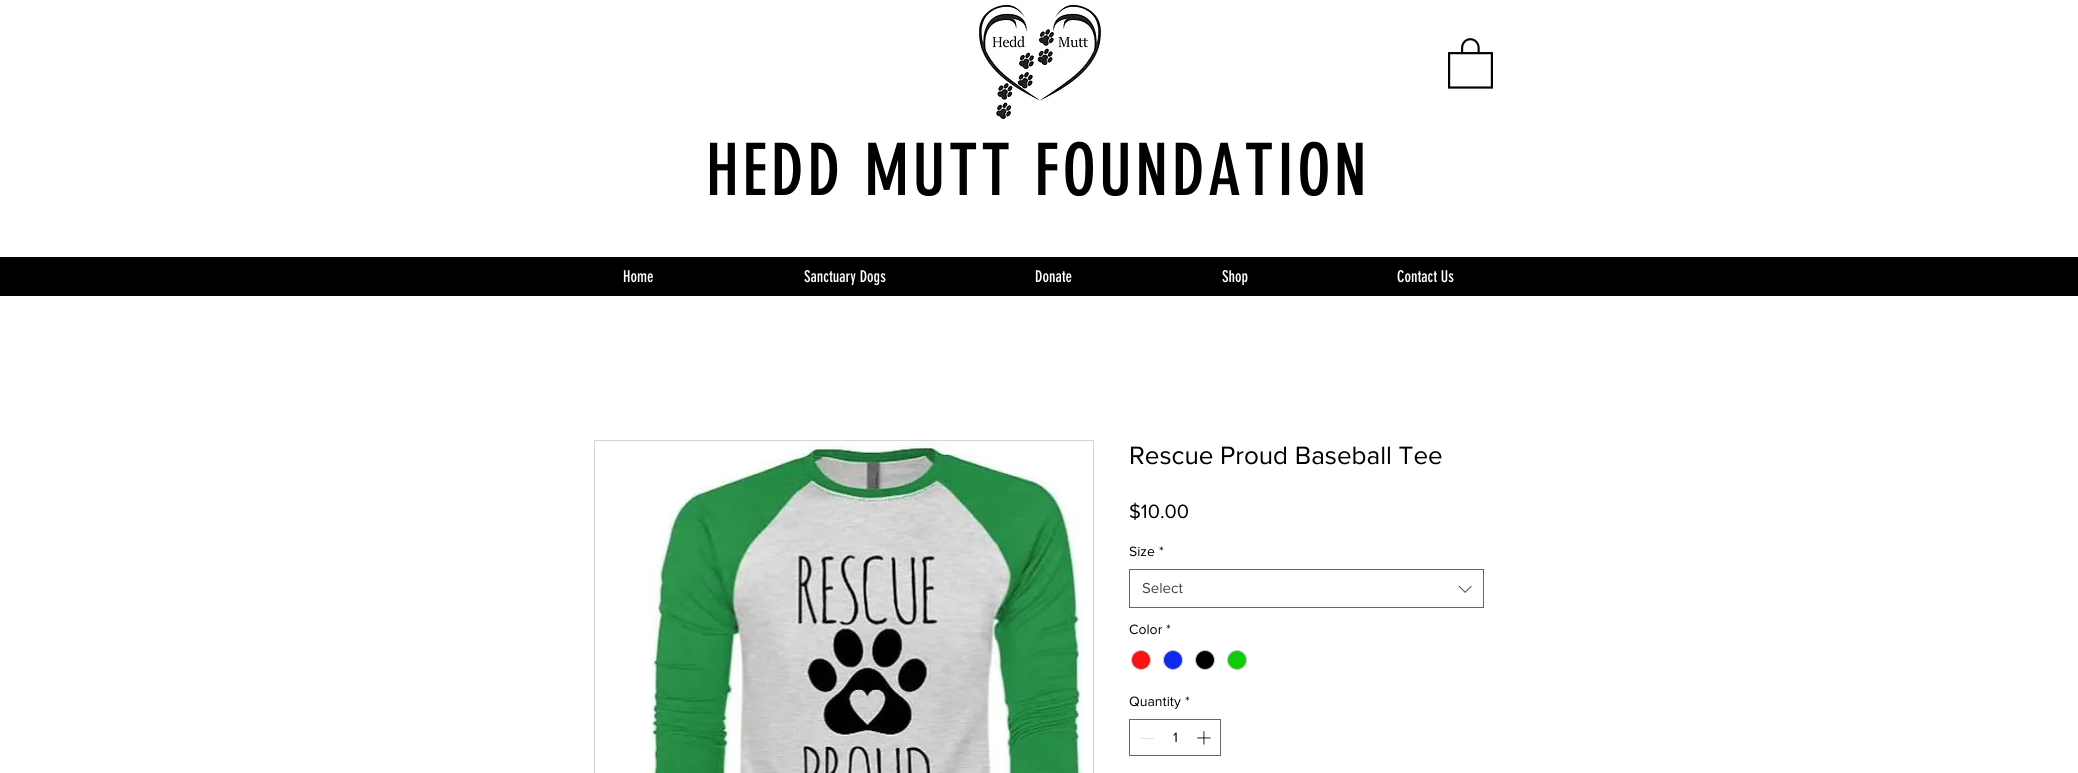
#include <cairo/cairo.h>
#include <math.h>
#include <stddef.h>


static void draw_spaced(cairo_t *cr, double x, double y, const char *s, double letter, double word) {
  cairo_move_to(cr, x, y);
  while (*s) {
    char ch[5] = {0};
    int n = 0;
    do ch[n++] = *s++; while ((*s & 0xC0) == 0x80);
    cairo_show_text(cr, ch);
    cairo_rel_move_to(cr, letter + word * (*ch == ' '), 0);
  }
}

static void draw_image(cairo_t *cr, const char *path, double x, double y, double w, double h) {
  cairo_surface_t *image = cairo_image_surface_create_from_png(path);
  cairo_save(cr);
  cairo_set_source_surface(cr, image, x, y);
  cairo_rectangle(cr, x, y, w, h);
  cairo_fill(cr);
  cairo_restore(cr);
  cairo_surface_destroy(image);
}

static void draw(cairo_t *cr) {
  cairo_set_source_rgb(cr, 1, 1, 1);
  cairo_paint(cr);
  draw_image(cr, "images/1.png", 979, 5, 122, 116);
  draw_image(cr, "images/2.png", 1448, 38, 45, 51);
  cairo_set_source_rgb(cr, 0, 0, 0);
  cairo_rectangle(cr, 0, 257, 2078, 39);
  cairo_fill(cr);
  cairo_rectangle(cr, 594.5, 440.5, 499, 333);
  cairo_set_source_rgb(cr, 212 / 255.0, 212 / 255.0, 212 / 255.0);
  cairo_set_line_width(cr, 1);
  cairo_stroke(cr);
  draw_image(cr, "images/3.png", 650, 441, 434, 332);
  cairo_rectangle(cr, 1129.5, 569.5, 354, 38);
  cairo_set_source_rgb(cr, 102 / 255.0, 102 / 255.0, 102 / 255.0);
  cairo_stroke(cr);
  draw_image(cr, "images/4.png", 1458, 585, 14, 8);
  cairo_set_source_rgb(cr, 251 / 255.0, 18 / 255.0, 18 / 255.0);
  cairo_arc(cr, 1141, 660, 9.5, 0, 2 * M_PI);
  cairo_fill_preserve(cr);
  cairo_set_source_rgb(cr, 201 / 255.0, 201 / 255.0, 201 / 255.0);
  cairo_stroke(cr);
  cairo_set_source_rgb(cr, 14 / 255.0, 41 / 255.0, 241 / 255.0);
  cairo_arc(cr, 1173, 660, 9.5, 0, 2 * M_PI);
  cairo_fill_preserve(cr);
  cairo_set_source_rgb(cr, 201 / 255.0, 201 / 255.0, 201 / 255.0);
  cairo_stroke(cr);
  cairo_set_source_rgb(cr, 0, 0, 0);
  cairo_arc(cr, 1205, 660, 9.5, 0, 2 * M_PI);
  cairo_fill_preserve(cr);
  cairo_set_source_rgb(cr, 201 / 255.0, 201 / 255.0, 201 / 255.0);
  cairo_stroke(cr);
  cairo_set_source_rgb(cr, 15 / 255.0, 204 / 255.0, 7 / 255.0);
  cairo_arc(cr, 1237, 660, 9.5, 0, 2 * M_PI);
  cairo_fill_preserve(cr);
  cairo_set_source_rgb(cr, 201 / 255.0, 201 / 255.0, 201 / 255.0);
  cairo_stroke(cr);
  cairo_rectangle(cr, 1129.5, 719.5, 91, 36);
  cairo_set_source_rgb(cr, 102 / 255.0, 102 / 255.0, 102 / 255.0);
  cairo_stroke(cr);
  cairo_set_source_rgb(cr, 227 / 255.0, 227 / 255.0, 227 / 255.0);
  cairo_rectangle(cr, 1141, 738, 13, 1);
  cairo_fill(cr);
  draw_image(cr, "images/5.png", 1197, 731, 14, 14);
  cairo_select_font_face(cr, "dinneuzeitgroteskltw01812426", CAIRO_FONT_SLANT_NORMAL, CAIRO_FONT_WEIGHT_NORMAL);
  cairo_set_font_size(cr, 71);
  cairo_set_source_rgb(cr, 0, 0, 0);
  draw_spaced(cr, 706, 195, "HEDD MUTT FOUNDATION", 3.5, 0);
  cairo_set_font_size(cr, 16);
  cairo_set_source_rgb(cr, 1, 1, 1);
  cairo_move_to(cr, 623, 282);
  cairo_show_text(cr, "Home");
  cairo_move_to(cr, 804, 282);
  cairo_show_text(cr, "Sanctuary Dogs");
  cairo_move_to(cr, 1035, 282);
  cairo_show_text(cr, "Donate");
  cairo_move_to(cr, 1222, 282);
  cairo_show_text(cr, "Shop");
  cairo_move_to(cr, 1397, 282);
  cairo_show_text(cr, "Contact Us");
  cairo_select_font_face(cr, "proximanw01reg", CAIRO_FONT_SLANT_NORMAL, CAIRO_FONT_WEIGHT_NORMAL);
  cairo_set_font_size(cr, 26);
  cairo_set_source_rgb(cr, 0, 0, 0);
  cairo_move_to(cr, 1129, 464);
  cairo_show_text(cr, "Rescue Proud Baseball Tee");
  cairo_set_font_size(cr, 20);
  cairo_move_to(cr, 1129, 518);
  cairo_show_text(cr, "$10.00");
  cairo_set_font_size(cr, 14);
  cairo_move_to(cr, 1129, 556);
  cairo_show_text(cr, "Size");
  cairo_move_to(cr, 1159, 556);
  cairo_show_text(cr, "*");
  cairo_set_font_size(cr, 15);
  cairo_set_source_rgb(cr, 68 / 255.0, 68 / 255.0, 68 / 255.0);
  cairo_move_to(cr, 1142, 593);
  cairo_show_text(cr, "Select");
  cairo_set_font_size(cr, 14);
  cairo_set_source_rgb(cr, 0, 0, 0);
  cairo_move_to(cr, 1129, 634);
  cairo_show_text(cr, "Color");
  cairo_move_to(cr, 1166, 634);
  cairo_show_text(cr, "*");
  cairo_move_to(cr, 1129, 706);
  cairo_show_text(cr, "Quantity");
  cairo_move_to(cr, 1185, 706);
  cairo_show_text(cr, "*");
  cairo_move_to(cr, 1173, 742);
  cairo_show_text(cr, "1");
}

int main(void) {
  cairo_surface_t *surface = cairo_image_surface_create(CAIRO_FORMAT_RGB24, 2078, 773);
  cairo_t *cr = cairo_create(surface);
  cairo_font_options_t *options = cairo_font_options_create();
  cairo_font_options_set_hint_metrics(options, CAIRO_HINT_METRICS_OFF);
  cairo_font_options_set_hint_style(options, CAIRO_HINT_STYLE_NONE);
  cairo_set_font_options(cr, options);
  cairo_set_miter_limit(cr, 4);
  draw(cr);
  cairo_surface_write_to_png(surface, "out.png");
  cairo_font_options_destroy(options);
  cairo_destroy(cr);
  cairo_surface_destroy(surface);
  return 0;
}
